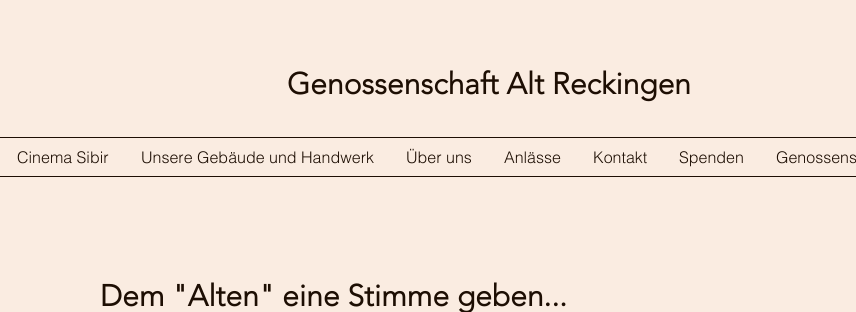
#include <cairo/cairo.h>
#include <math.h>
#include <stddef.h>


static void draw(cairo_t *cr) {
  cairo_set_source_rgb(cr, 250 / 255.0, 236 / 255.0, 225 / 255.0);
  cairo_paint(cr);
  cairo_set_source_rgb(cr, 29 / 255.0, 14 / 255.0, 3 / 255.0);
  cairo_rectangle(cr, 0, 137, 856, 1);
  cairo_fill(cr);
  cairo_rectangle(cr, 0, 176, 856, 1);
  cairo_fill(cr);
  cairo_select_font_face(cr, "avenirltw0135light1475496", CAIRO_FONT_SLANT_NORMAL, CAIRO_FONT_WEIGHT_BOLD);
  cairo_set_font_size(cr, 30);
  cairo_move_to(cr, 287, 94);
  cairo_show_text(cr, "Genossenschaft Alt Reckingen");
  cairo_select_font_face(cr, "helvetica Light", CAIRO_FONT_SLANT_NORMAL, CAIRO_FONT_WEIGHT_NORMAL);
  cairo_set_font_size(cr, 16);
  cairo_move_to(cr, 17, 163);
  cairo_show_text(cr, "Cinema Sibir");
  cairo_move_to(cr, 141, 163);
  cairo_show_text(cr, "Unsere Gebäude und Handwerk");
  cairo_move_to(cr, 406, 163);
  cairo_show_text(cr, "Über uns");
  cairo_move_to(cr, 504, 163);
  cairo_show_text(cr, "Anlässe");
  cairo_move_to(cr, 593, 163);
  cairo_show_text(cr, "Kontakt");
  cairo_move_to(cr, 679, 163);
  cairo_show_text(cr, "Spenden");
  cairo_move_to(cr, 776, 163);
  cairo_show_text(cr, "Genossens");
  cairo_select_font_face(cr, "avenirltw0135light1475496", CAIRO_FONT_SLANT_NORMAL, CAIRO_FONT_WEIGHT_BOLD);
  cairo_set_font_size(cr, 30);
  cairo_move_to(cr, 100, 306);
  cairo_show_text(cr, "Dem \"Alten\" eine Stimme geben...");
}

int main(void) {
  cairo_surface_t *surface = cairo_image_surface_create(CAIRO_FORMAT_RGB24, 856, 312);
  cairo_t *cr = cairo_create(surface);
  cairo_font_options_t *options = cairo_font_options_create();
  cairo_font_options_set_hint_metrics(options, CAIRO_HINT_METRICS_OFF);
  cairo_font_options_set_hint_style(options, CAIRO_HINT_STYLE_NONE);
  cairo_set_font_options(cr, options);
  cairo_set_miter_limit(cr, 4);
  draw(cr);
  cairo_surface_write_to_png(surface, "out.png");
  cairo_font_options_destroy(options);
  cairo_destroy(cr);
  cairo_surface_destroy(surface);
  return 0;
}
